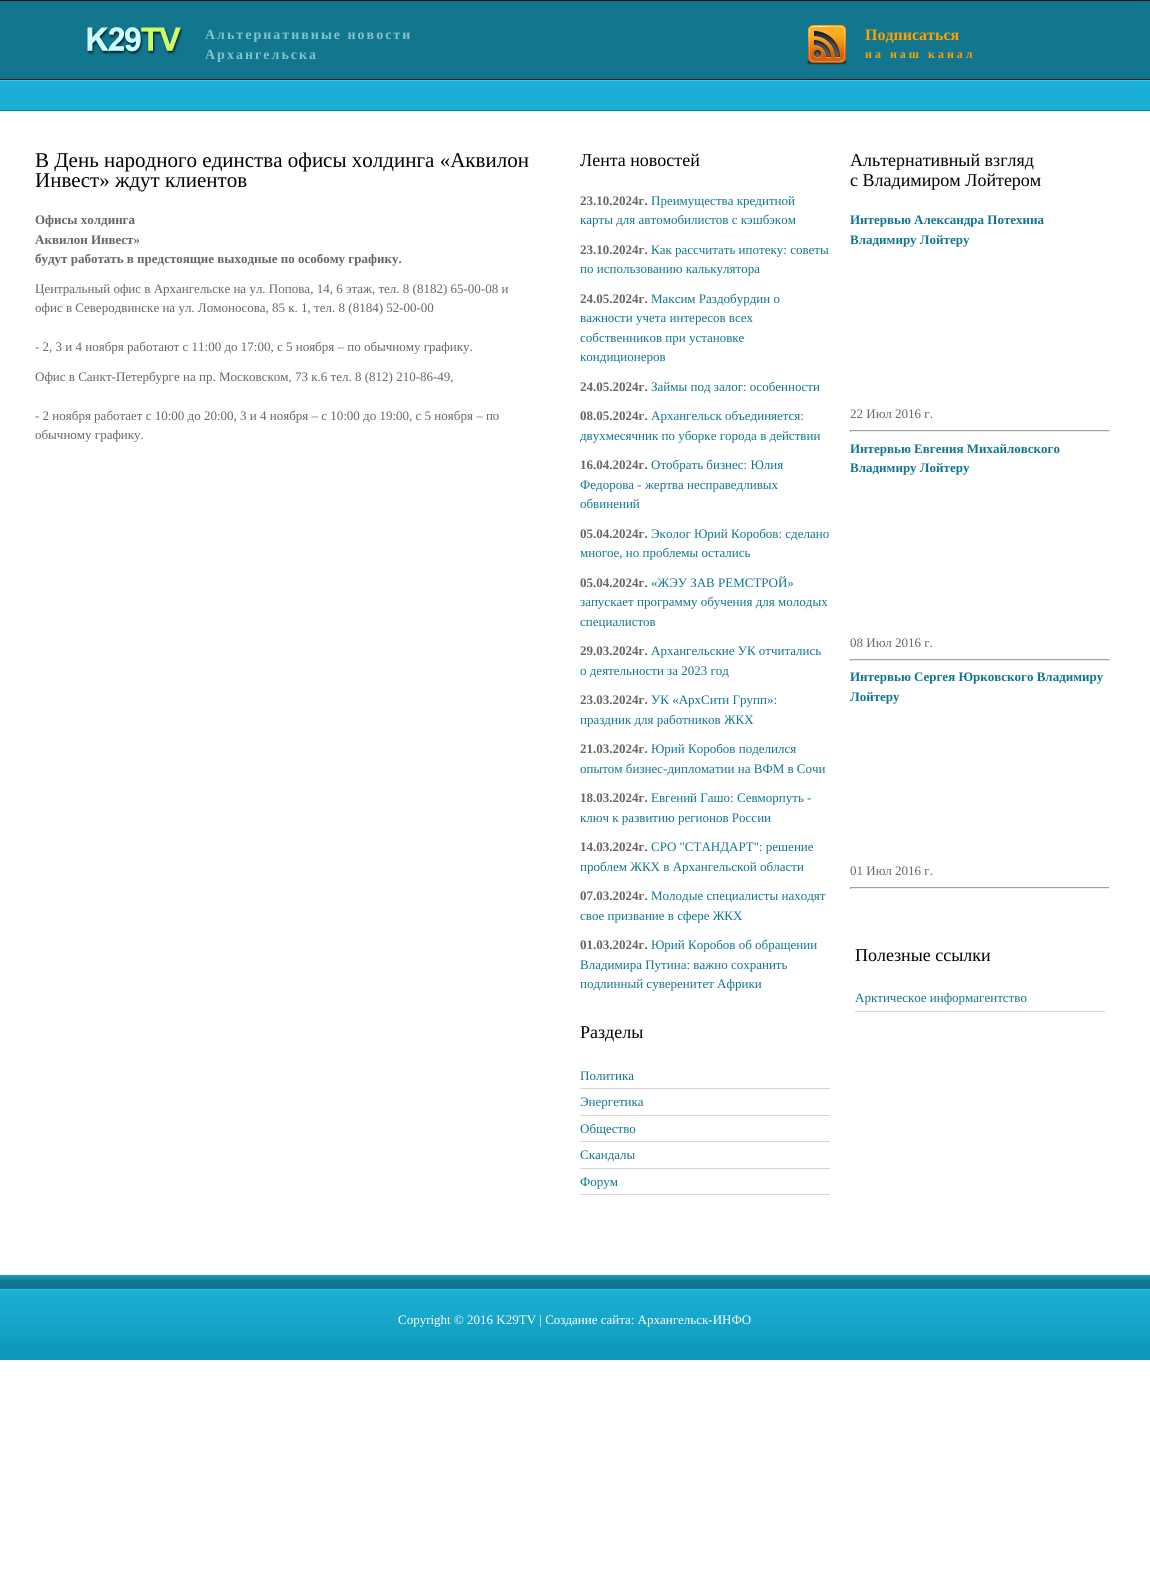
#include <cairo/cairo.h>
#include <math.h>
#include <stddef.h>


static void draw_spaced(cairo_t *cr, double x, double y, const char *s, double letter, double word) {
  cairo_move_to(cr, x, y);
  while (*s) {
    char ch[5] = {0};
    int n = 0;
    do ch[n++] = *s++; while ((*s & 0xC0) == 0x80);
    cairo_show_text(cr, ch);
    cairo_rel_move_to(cr, letter + word * (*ch == ' '), 0);
  }
}

static void draw_image(cairo_t *cr, const char *path, double x, double y, double w, double h) {
  cairo_surface_t *image = cairo_image_surface_create_from_png(path);
  cairo_save(cr);
  cairo_set_source_surface(cr, image, x, y);
  cairo_rectangle(cr, x, y, w, h);
  cairo_fill(cr);
  cairo_restore(cr);
  cairo_surface_destroy(image);
}

static void draw(cairo_t *cr) {
  cairo_set_source_rgb(cr, 1, 1, 1);
  cairo_paint(cr);
  draw_image(cr, "images/1.png", 0, 0, 1150, 111);
  draw_image(cr, "images/2.png", 86, 27, 97, 28);
  draw_image(cr, "images/3.png", 806, 25, 42, 40);
  cairo_set_source_rgb(cr, 214 / 255.0, 214 / 255.0, 214 / 255.0);
  cairo_rectangle(cr, 580, 1088, 250, 1);
  cairo_fill(cr);
  cairo_rectangle(cr, 580, 1115, 250, 1);
  cairo_fill(cr);
  cairo_rectangle(cr, 580, 1141, 250, 1);
  cairo_fill(cr);
  cairo_rectangle(cr, 580, 1168, 250, 1);
  cairo_fill(cr);
  cairo_rectangle(cr, 580, 1194, 250, 1);
  cairo_fill(cr);
  cairo_set_source_rgb(cr, 159 / 255.0, 159 / 255.0, 159 / 255.0);
  cairo_rectangle(cr, 850, 430, 260, 1);
  cairo_fill(cr);
  cairo_set_source_rgb(cr, 238 / 255.0, 238 / 255.0, 238 / 255.0);
  cairo_rectangle(cr, 1109, 430, 1, 2);
  cairo_fill(cr);
  cairo_rectangle(cr, 850, 431, 260, 1);
  cairo_fill(cr);
  cairo_set_source_rgb(cr, 159 / 255.0, 159 / 255.0, 159 / 255.0);
  cairo_rectangle(cr, 850, 430, 1, 2);
  cairo_fill(cr);
  cairo_rectangle(cr, 850, 659, 260, 1);
  cairo_fill(cr);
  cairo_set_source_rgb(cr, 238 / 255.0, 238 / 255.0, 238 / 255.0);
  cairo_rectangle(cr, 1109, 659, 1, 2);
  cairo_fill(cr);
  cairo_rectangle(cr, 850, 660, 260, 1);
  cairo_fill(cr);
  cairo_set_source_rgb(cr, 159 / 255.0, 159 / 255.0, 159 / 255.0);
  cairo_rectangle(cr, 850, 659, 1, 2);
  cairo_fill(cr);
  cairo_rectangle(cr, 850, 887, 260, 1);
  cairo_fill(cr);
  cairo_set_source_rgb(cr, 238 / 255.0, 238 / 255.0, 238 / 255.0);
  cairo_rectangle(cr, 1109, 887, 1, 2);
  cairo_fill(cr);
  cairo_rectangle(cr, 850, 888, 260, 1);
  cairo_fill(cr);
  cairo_set_source_rgb(cr, 159 / 255.0, 159 / 255.0, 159 / 255.0);
  cairo_rectangle(cr, 850, 887, 1, 2);
  cairo_fill(cr);
  cairo_set_source_rgb(cr, 214 / 255.0, 214 / 255.0, 214 / 255.0);
  cairo_rectangle(cr, 855, 1011, 250, 1);
  cairo_fill(cr);
  cairo_set_source_rgb(cr, 15 / 255.0, 153 / 255.0, 188 / 255.0);
  cairo_rectangle(cr, 0, 1275, 1150, 85);
  cairo_fill(cr);
  draw_image(cr, "images/4.png", 0, 1277, 1150, 65);
  cairo_select_font_face(cr, "Liberation Serif", CAIRO_FONT_SLANT_NORMAL, CAIRO_FONT_WEIGHT_BOLD);
  cairo_set_font_size(cr, 14);
  cairo_set_source_rgb(cr, 133 / 255.0, 194 / 255.0, 209 / 255.0);
  draw_spaced(cr, 205, 39, "Альтернативные новости", 2, 0);
  draw_spaced(cr, 205, 59, "Архангельска", 2, 0);
  cairo_set_font_size(cr, 16);
  cairo_set_source_rgb(cr, 1, 162 / 255.0, 0);
  cairo_move_to(cr, 865, 40);
  cairo_show_text(cr, "Подписаться");
  cairo_set_font_size(cr, 12);
  draw_spaced(cr, 865, 58, "на наш канал", 3, 0);
  cairo_select_font_face(cr, "Liberation Serif", CAIRO_FONT_SLANT_NORMAL, CAIRO_FONT_WEIGHT_NORMAL);
  cairo_set_font_size(cr, 21);
  cairo_set_source_rgb(cr, 0, 0, 0);
  cairo_move_to(cr, 35, 167);
  cairo_show_text(cr, "В День народного единства офисы холдинга «Аквилон");
  cairo_move_to(cr, 35, 187);
  cairo_show_text(cr, "Инвест» ждут клиентов");
  cairo_select_font_face(cr, "Liberation Serif", CAIRO_FONT_SLANT_NORMAL, CAIRO_FONT_WEIGHT_BOLD);
  cairo_set_font_size(cr, 13);
  cairo_set_source_rgb(cr, 102 / 255.0, 102 / 255.0, 102 / 255.0);
  cairo_move_to(cr, 35, 224);
  cairo_show_text(cr, "Офисы холдинга");
  cairo_move_to(cr, 35, 244);
  cairo_show_text(cr, "Аквилон Инвест»");
  cairo_move_to(cr, 35, 263);
  cairo_show_text(cr, "будут работать в предстоящие выходные по особому графику.");
  cairo_select_font_face(cr, "Liberation Serif", CAIRO_FONT_SLANT_NORMAL, CAIRO_FONT_WEIGHT_NORMAL);
  cairo_move_to(cr, 35, 293);
  cairo_show_text(cr, "Центральный офис в Архангельске на ул. Попова, 14, 6 этаж, тел. 8 (8182) 65-00-08 и");
  cairo_move_to(cr, 35, 312);
  cairo_show_text(cr, "офис в Северодвинске на ул. Ломоносова, 85 к. 1, тел. 8 (8184) 52-00-00");
  cairo_move_to(cr, 35, 351);
  cairo_show_text(cr, "- 2, 3 и 4 ноября работают с 11:00 до 17:00, с 5 ноября – по обычному графику.");
  cairo_move_to(cr, 35, 381);
  cairo_show_text(cr, "Офис в Санкт-Петербурге на пр. Московском, 73 к.6 тел. 8 (812) 210-86-49,");
  cairo_move_to(cr, 35, 420);
  cairo_show_text(cr, "- 2 ноября работает с 10:00 до 20:00, 3 и 4 ноября – с 10:00 до 19:00, с 5 ноября – по");
  cairo_move_to(cr, 35, 439);
  cairo_show_text(cr, "обычному графику.");
  cairo_set_font_size(cr, 18);
  cairo_set_source_rgb(cr, 0, 0, 0);
  cairo_move_to(cr, 580, 166);
  cairo_show_text(cr, "Лента новостей");
  cairo_select_font_face(cr, "Liberation Serif", CAIRO_FONT_SLANT_NORMAL, CAIRO_FONT_WEIGHT_BOLD);
  cairo_set_font_size(cr, 13);
  cairo_set_source_rgb(cr, 102 / 255.0, 102 / 255.0, 102 / 255.0);
  cairo_move_to(cr, 580, 205);
  cairo_show_text(cr, "23.10.2024г.");
  cairo_select_font_face(cr, "Liberation Serif", CAIRO_FONT_SLANT_NORMAL, CAIRO_FONT_WEIGHT_NORMAL);
  cairo_set_source_rgb(cr, 18 / 255.0, 117 / 255.0, 142 / 255.0);
  cairo_move_to(cr, 651, 205);
  cairo_show_text(cr, "Преимущества кредитной");
  cairo_move_to(cr, 580, 224);
  cairo_show_text(cr, "карты для автомобилистов с кэшбэком");
  cairo_select_font_face(cr, "Liberation Serif", CAIRO_FONT_SLANT_NORMAL, CAIRO_FONT_WEIGHT_BOLD);
  cairo_set_source_rgb(cr, 102 / 255.0, 102 / 255.0, 102 / 255.0);
  cairo_move_to(cr, 580, 254);
  cairo_show_text(cr, "23.10.2024г.");
  cairo_select_font_face(cr, "Liberation Serif", CAIRO_FONT_SLANT_NORMAL, CAIRO_FONT_WEIGHT_NORMAL);
  cairo_set_source_rgb(cr, 18 / 255.0, 117 / 255.0, 142 / 255.0);
  cairo_move_to(cr, 651, 254);
  cairo_show_text(cr, "Как рассчитать ипотеку: советы");
  cairo_move_to(cr, 580, 273);
  cairo_show_text(cr, "по использованию калькулятора");
  cairo_select_font_face(cr, "Liberation Serif", CAIRO_FONT_SLANT_NORMAL, CAIRO_FONT_WEIGHT_BOLD);
  cairo_set_source_rgb(cr, 102 / 255.0, 102 / 255.0, 102 / 255.0);
  cairo_move_to(cr, 580, 303);
  cairo_show_text(cr, "24.05.2024г.");
  cairo_select_font_face(cr, "Liberation Serif", CAIRO_FONT_SLANT_NORMAL, CAIRO_FONT_WEIGHT_NORMAL);
  cairo_set_source_rgb(cr, 18 / 255.0, 117 / 255.0, 142 / 255.0);
  cairo_move_to(cr, 651, 303);
  cairo_show_text(cr, "Максим Раздобурдин о");
  cairo_move_to(cr, 580, 322);
  cairo_show_text(cr, "важности учета интересов всех");
  cairo_move_to(cr, 580, 342);
  cairo_show_text(cr, "собственников при установке");
  cairo_move_to(cr, 580, 361);
  cairo_show_text(cr, "кондиционеров");
  cairo_select_font_face(cr, "Liberation Serif", CAIRO_FONT_SLANT_NORMAL, CAIRO_FONT_WEIGHT_BOLD);
  cairo_set_source_rgb(cr, 102 / 255.0, 102 / 255.0, 102 / 255.0);
  cairo_move_to(cr, 580, 391);
  cairo_show_text(cr, "24.05.2024г.");
  cairo_select_font_face(cr, "Liberation Serif", CAIRO_FONT_SLANT_NORMAL, CAIRO_FONT_WEIGHT_NORMAL);
  cairo_set_source_rgb(cr, 18 / 255.0, 117 / 255.0, 142 / 255.0);
  cairo_move_to(cr, 651, 391);
  cairo_show_text(cr, "Займы под залог: особенности");
  cairo_select_font_face(cr, "Liberation Serif", CAIRO_FONT_SLANT_NORMAL, CAIRO_FONT_WEIGHT_BOLD);
  cairo_set_source_rgb(cr, 102 / 255.0, 102 / 255.0, 102 / 255.0);
  cairo_move_to(cr, 580, 420);
  cairo_show_text(cr, "08.05.2024г.");
  cairo_select_font_face(cr, "Liberation Serif", CAIRO_FONT_SLANT_NORMAL, CAIRO_FONT_WEIGHT_NORMAL);
  cairo_set_source_rgb(cr, 18 / 255.0, 117 / 255.0, 142 / 255.0);
  cairo_move_to(cr, 651, 420);
  cairo_show_text(cr, "Архангельск объединяется:");
  cairo_move_to(cr, 580, 440);
  cairo_show_text(cr, "двухмесячник по уборке города в действии");
  cairo_select_font_face(cr, "Liberation Serif", CAIRO_FONT_SLANT_NORMAL, CAIRO_FONT_WEIGHT_BOLD);
  cairo_set_source_rgb(cr, 102 / 255.0, 102 / 255.0, 102 / 255.0);
  cairo_move_to(cr, 580, 469);
  cairo_show_text(cr, "16.04.2024г.");
  cairo_select_font_face(cr, "Liberation Serif", CAIRO_FONT_SLANT_NORMAL, CAIRO_FONT_WEIGHT_NORMAL);
  cairo_set_source_rgb(cr, 18 / 255.0, 117 / 255.0, 142 / 255.0);
  cairo_move_to(cr, 651, 469);
  cairo_show_text(cr, "Отобрать бизнес: Юлия");
  cairo_move_to(cr, 580, 489);
  cairo_show_text(cr, "Федорова - жертва несправедливых");
  cairo_move_to(cr, 580, 508);
  cairo_show_text(cr, "обвинений");
  cairo_select_font_face(cr, "Liberation Serif", CAIRO_FONT_SLANT_NORMAL, CAIRO_FONT_WEIGHT_BOLD);
  cairo_set_source_rgb(cr, 102 / 255.0, 102 / 255.0, 102 / 255.0);
  cairo_move_to(cr, 580, 538);
  cairo_show_text(cr, "05.04.2024г.");
  cairo_select_font_face(cr, "Liberation Serif", CAIRO_FONT_SLANT_NORMAL, CAIRO_FONT_WEIGHT_NORMAL);
  cairo_set_source_rgb(cr, 18 / 255.0, 117 / 255.0, 142 / 255.0);
  cairo_move_to(cr, 651, 538);
  cairo_show_text(cr, "Эколог Юрий Коробов: сделано");
  cairo_move_to(cr, 580, 557);
  cairo_show_text(cr, "многое, но проблемы остались");
  cairo_select_font_face(cr, "Liberation Serif", CAIRO_FONT_SLANT_NORMAL, CAIRO_FONT_WEIGHT_BOLD);
  cairo_set_source_rgb(cr, 102 / 255.0, 102 / 255.0, 102 / 255.0);
  cairo_move_to(cr, 580, 587);
  cairo_show_text(cr, "05.04.2024г.");
  cairo_select_font_face(cr, "Liberation Serif", CAIRO_FONT_SLANT_NORMAL, CAIRO_FONT_WEIGHT_NORMAL);
  cairo_set_source_rgb(cr, 18 / 255.0, 117 / 255.0, 142 / 255.0);
  cairo_move_to(cr, 651, 587);
  cairo_show_text(cr, "«ЖЭУ ЗАВ РЕМСТРОЙ»");
  cairo_move_to(cr, 580, 606);
  cairo_show_text(cr, "запускает программу обучения для молодых");
  cairo_move_to(cr, 580, 626);
  cairo_show_text(cr, "специалистов");
  cairo_select_font_face(cr, "Liberation Serif", CAIRO_FONT_SLANT_NORMAL, CAIRO_FONT_WEIGHT_BOLD);
  cairo_set_source_rgb(cr, 102 / 255.0, 102 / 255.0, 102 / 255.0);
  cairo_move_to(cr, 580, 655);
  cairo_show_text(cr, "29.03.2024г.");
  cairo_select_font_face(cr, "Liberation Serif", CAIRO_FONT_SLANT_NORMAL, CAIRO_FONT_WEIGHT_NORMAL);
  cairo_set_source_rgb(cr, 18 / 255.0, 117 / 255.0, 142 / 255.0);
  cairo_move_to(cr, 651, 655);
  cairo_show_text(cr, "Архангельские УК отчитались");
  cairo_move_to(cr, 580, 675);
  cairo_show_text(cr, "о деятельности за 2023 год");
  cairo_select_font_face(cr, "Liberation Serif", CAIRO_FONT_SLANT_NORMAL, CAIRO_FONT_WEIGHT_BOLD);
  cairo_set_source_rgb(cr, 102 / 255.0, 102 / 255.0, 102 / 255.0);
  cairo_move_to(cr, 580, 704);
  cairo_show_text(cr, "23.03.2024г.");
  cairo_select_font_face(cr, "Liberation Serif", CAIRO_FONT_SLANT_NORMAL, CAIRO_FONT_WEIGHT_NORMAL);
  cairo_set_source_rgb(cr, 18 / 255.0, 117 / 255.0, 142 / 255.0);
  cairo_move_to(cr, 651, 704);
  cairo_show_text(cr, "УК «АрхСити Групп»:");
  cairo_move_to(cr, 580, 724);
  cairo_show_text(cr, "праздник для работников ЖКХ");
  cairo_select_font_face(cr, "Liberation Serif", CAIRO_FONT_SLANT_NORMAL, CAIRO_FONT_WEIGHT_BOLD);
  cairo_set_source_rgb(cr, 102 / 255.0, 102 / 255.0, 102 / 255.0);
  cairo_move_to(cr, 580, 753);
  cairo_show_text(cr, "21.03.2024г.");
  cairo_select_font_face(cr, "Liberation Serif", CAIRO_FONT_SLANT_NORMAL, CAIRO_FONT_WEIGHT_NORMAL);
  cairo_set_source_rgb(cr, 18 / 255.0, 117 / 255.0, 142 / 255.0);
  cairo_move_to(cr, 651, 753);
  cairo_show_text(cr, "Юрий Коробов поделился");
  cairo_move_to(cr, 580, 773);
  cairo_show_text(cr, "опытом бизнес-дипломатии на ВФМ в Сочи");
  cairo_select_font_face(cr, "Liberation Serif", CAIRO_FONT_SLANT_NORMAL, CAIRO_FONT_WEIGHT_BOLD);
  cairo_set_source_rgb(cr, 102 / 255.0, 102 / 255.0, 102 / 255.0);
  cairo_move_to(cr, 580, 802);
  cairo_show_text(cr, "18.03.2024г.");
  cairo_select_font_face(cr, "Liberation Serif", CAIRO_FONT_SLANT_NORMAL, CAIRO_FONT_WEIGHT_NORMAL);
  cairo_set_source_rgb(cr, 18 / 255.0, 117 / 255.0, 142 / 255.0);
  cairo_move_to(cr, 651, 802);
  cairo_show_text(cr, "Евгений Гашо: Севморпуть -");
  cairo_move_to(cr, 580, 822);
  cairo_show_text(cr, "ключ к развитию регионов России");
  cairo_select_font_face(cr, "Liberation Serif", CAIRO_FONT_SLANT_NORMAL, CAIRO_FONT_WEIGHT_BOLD);
  cairo_set_source_rgb(cr, 102 / 255.0, 102 / 255.0, 102 / 255.0);
  cairo_move_to(cr, 580, 851);
  cairo_show_text(cr, "14.03.2024г.");
  cairo_select_font_face(cr, "Liberation Serif", CAIRO_FONT_SLANT_NORMAL, CAIRO_FONT_WEIGHT_NORMAL);
  cairo_set_source_rgb(cr, 18 / 255.0, 117 / 255.0, 142 / 255.0);
  cairo_move_to(cr, 651, 851);
  cairo_show_text(cr, "СРО \"СТАНДАРТ\": решение");
  cairo_move_to(cr, 580, 871);
  cairo_show_text(cr, "проблем ЖКХ в Архангельской области");
  cairo_select_font_face(cr, "Liberation Serif", CAIRO_FONT_SLANT_NORMAL, CAIRO_FONT_WEIGHT_BOLD);
  cairo_set_source_rgb(cr, 102 / 255.0, 102 / 255.0, 102 / 255.0);
  cairo_move_to(cr, 580, 900);
  cairo_show_text(cr, "07.03.2024г.");
  cairo_select_font_face(cr, "Liberation Serif", CAIRO_FONT_SLANT_NORMAL, CAIRO_FONT_WEIGHT_NORMAL);
  cairo_set_source_rgb(cr, 18 / 255.0, 117 / 255.0, 142 / 255.0);
  cairo_move_to(cr, 651, 900);
  cairo_show_text(cr, "Молодые специалисты находят");
  cairo_move_to(cr, 580, 920);
  cairo_show_text(cr, "свое призвание в сфере ЖКХ");
  cairo_select_font_face(cr, "Liberation Serif", CAIRO_FONT_SLANT_NORMAL, CAIRO_FONT_WEIGHT_BOLD);
  cairo_set_source_rgb(cr, 102 / 255.0, 102 / 255.0, 102 / 255.0);
  cairo_move_to(cr, 580, 949);
  cairo_show_text(cr, "01.03.2024г.");
  cairo_select_font_face(cr, "Liberation Serif", CAIRO_FONT_SLANT_NORMAL, CAIRO_FONT_WEIGHT_NORMAL);
  cairo_set_source_rgb(cr, 18 / 255.0, 117 / 255.0, 142 / 255.0);
  cairo_move_to(cr, 651, 949);
  cairo_show_text(cr, "Юрий Коробов об обращении");
  cairo_move_to(cr, 580, 969);
  cairo_show_text(cr, "Владимира Путина: важно сохранить");
  cairo_move_to(cr, 580, 988);
  cairo_show_text(cr, "подлинный суверенитет Африки");
  cairo_set_font_size(cr, 18);
  cairo_set_source_rgb(cr, 0, 0, 0);
  cairo_move_to(cr, 580, 1038);
  cairo_show_text(cr, "Разделы");
  cairo_set_font_size(cr, 13);
  cairo_set_source_rgb(cr, 18 / 255.0, 117 / 255.0, 142 / 255.0);
  cairo_move_to(cr, 580, 1080);
  cairo_show_text(cr, "Политика");
  cairo_move_to(cr, 580, 1106);
  cairo_show_text(cr, "Энергетика");
  cairo_move_to(cr, 580, 1133);
  cairo_show_text(cr, "Общество");
  cairo_move_to(cr, 580, 1159);
  cairo_show_text(cr, "Скандалы");
  cairo_move_to(cr, 580, 1186);
  cairo_show_text(cr, "Форум");
  cairo_set_font_size(cr, 18);
  cairo_set_source_rgb(cr, 0, 0, 0);
  cairo_move_to(cr, 850, 166);
  cairo_show_text(cr, "Альтернативный взгляд");
  cairo_move_to(cr, 850, 186);
  cairo_show_text(cr, "с Владимиром Лойтером");
  cairo_select_font_face(cr, "Liberation Serif", CAIRO_FONT_SLANT_NORMAL, CAIRO_FONT_WEIGHT_BOLD);
  cairo_set_font_size(cr, 13);
  cairo_set_source_rgb(cr, 18 / 255.0, 117 / 255.0, 142 / 255.0);
  cairo_move_to(cr, 850, 224);
  cairo_show_text(cr, "Интервью Александра Потехина");
  cairo_move_to(cr, 850, 244);
  cairo_show_text(cr, "Владимиру Лойтеру");
  cairo_select_font_face(cr, "Liberation Serif", CAIRO_FONT_SLANT_NORMAL, CAIRO_FONT_WEIGHT_NORMAL);
  cairo_set_source_rgb(cr, 102 / 255.0, 102 / 255.0, 102 / 255.0);
  cairo_move_to(cr, 850, 418);
  cairo_show_text(cr, "22 Июл 2016 г.");
  cairo_select_font_face(cr, "Liberation Serif", CAIRO_FONT_SLANT_NORMAL, CAIRO_FONT_WEIGHT_BOLD);
  cairo_set_source_rgb(cr, 18 / 255.0, 117 / 255.0, 142 / 255.0);
  cairo_move_to(cr, 850, 453);
  cairo_show_text(cr, "Интервью Евгения Михайловского");
  cairo_move_to(cr, 850, 472);
  cairo_show_text(cr, "Владимиру Лойтеру");
  cairo_select_font_face(cr, "Liberation Serif", CAIRO_FONT_SLANT_NORMAL, CAIRO_FONT_WEIGHT_NORMAL);
  cairo_set_source_rgb(cr, 102 / 255.0, 102 / 255.0, 102 / 255.0);
  cairo_move_to(cr, 850, 647);
  cairo_show_text(cr, "08 Июл 2016 г.");
  cairo_select_font_face(cr, "Liberation Serif", CAIRO_FONT_SLANT_NORMAL, CAIRO_FONT_WEIGHT_BOLD);
  cairo_set_source_rgb(cr, 18 / 255.0, 117 / 255.0, 142 / 255.0);
  cairo_move_to(cr, 850, 681);
  cairo_show_text(cr, "Интервью Сергея Юрковского Владимиру");
  cairo_move_to(cr, 850, 701);
  cairo_show_text(cr, "Лойтеру");
  cairo_select_font_face(cr, "Liberation Serif", CAIRO_FONT_SLANT_NORMAL, CAIRO_FONT_WEIGHT_NORMAL);
  cairo_set_source_rgb(cr, 102 / 255.0, 102 / 255.0, 102 / 255.0);
  cairo_move_to(cr, 850, 875);
  cairo_show_text(cr, "01 Июл 2016 г.");
  cairo_set_font_size(cr, 18);
  cairo_set_source_rgb(cr, 0, 0, 0);
  cairo_move_to(cr, 855, 961);
  cairo_show_text(cr, "Полезные ссылки");
  cairo_set_font_size(cr, 13);
  cairo_set_source_rgb(cr, 18 / 255.0, 117 / 255.0, 142 / 255.0);
  cairo_move_to(cr, 855, 1002);
  cairo_show_text(cr, "Арктическое информагентство");
  cairo_set_source_rgb(cr, 1, 1, 1);
  cairo_move_to(cr, 398, 1324);
  cairo_show_text(cr, "Copyright © 2016 K29TV | Создание сайта: Архангельск-ИНФО");
}

int main(void) {
  cairo_surface_t *surface = cairo_image_surface_create(CAIRO_FORMAT_RGB24, 1150, 1583);
  cairo_t *cr = cairo_create(surface);
  cairo_font_options_t *options = cairo_font_options_create();
  cairo_font_options_set_hint_metrics(options, CAIRO_HINT_METRICS_OFF);
  cairo_font_options_set_hint_style(options, CAIRO_HINT_STYLE_NONE);
  cairo_set_font_options(cr, options);
  cairo_set_miter_limit(cr, 4);
  draw(cr);
  cairo_surface_write_to_png(surface, "out.png");
  cairo_font_options_destroy(options);
  cairo_destroy(cr);
  cairo_surface_destroy(surface);
  return 0;
}
